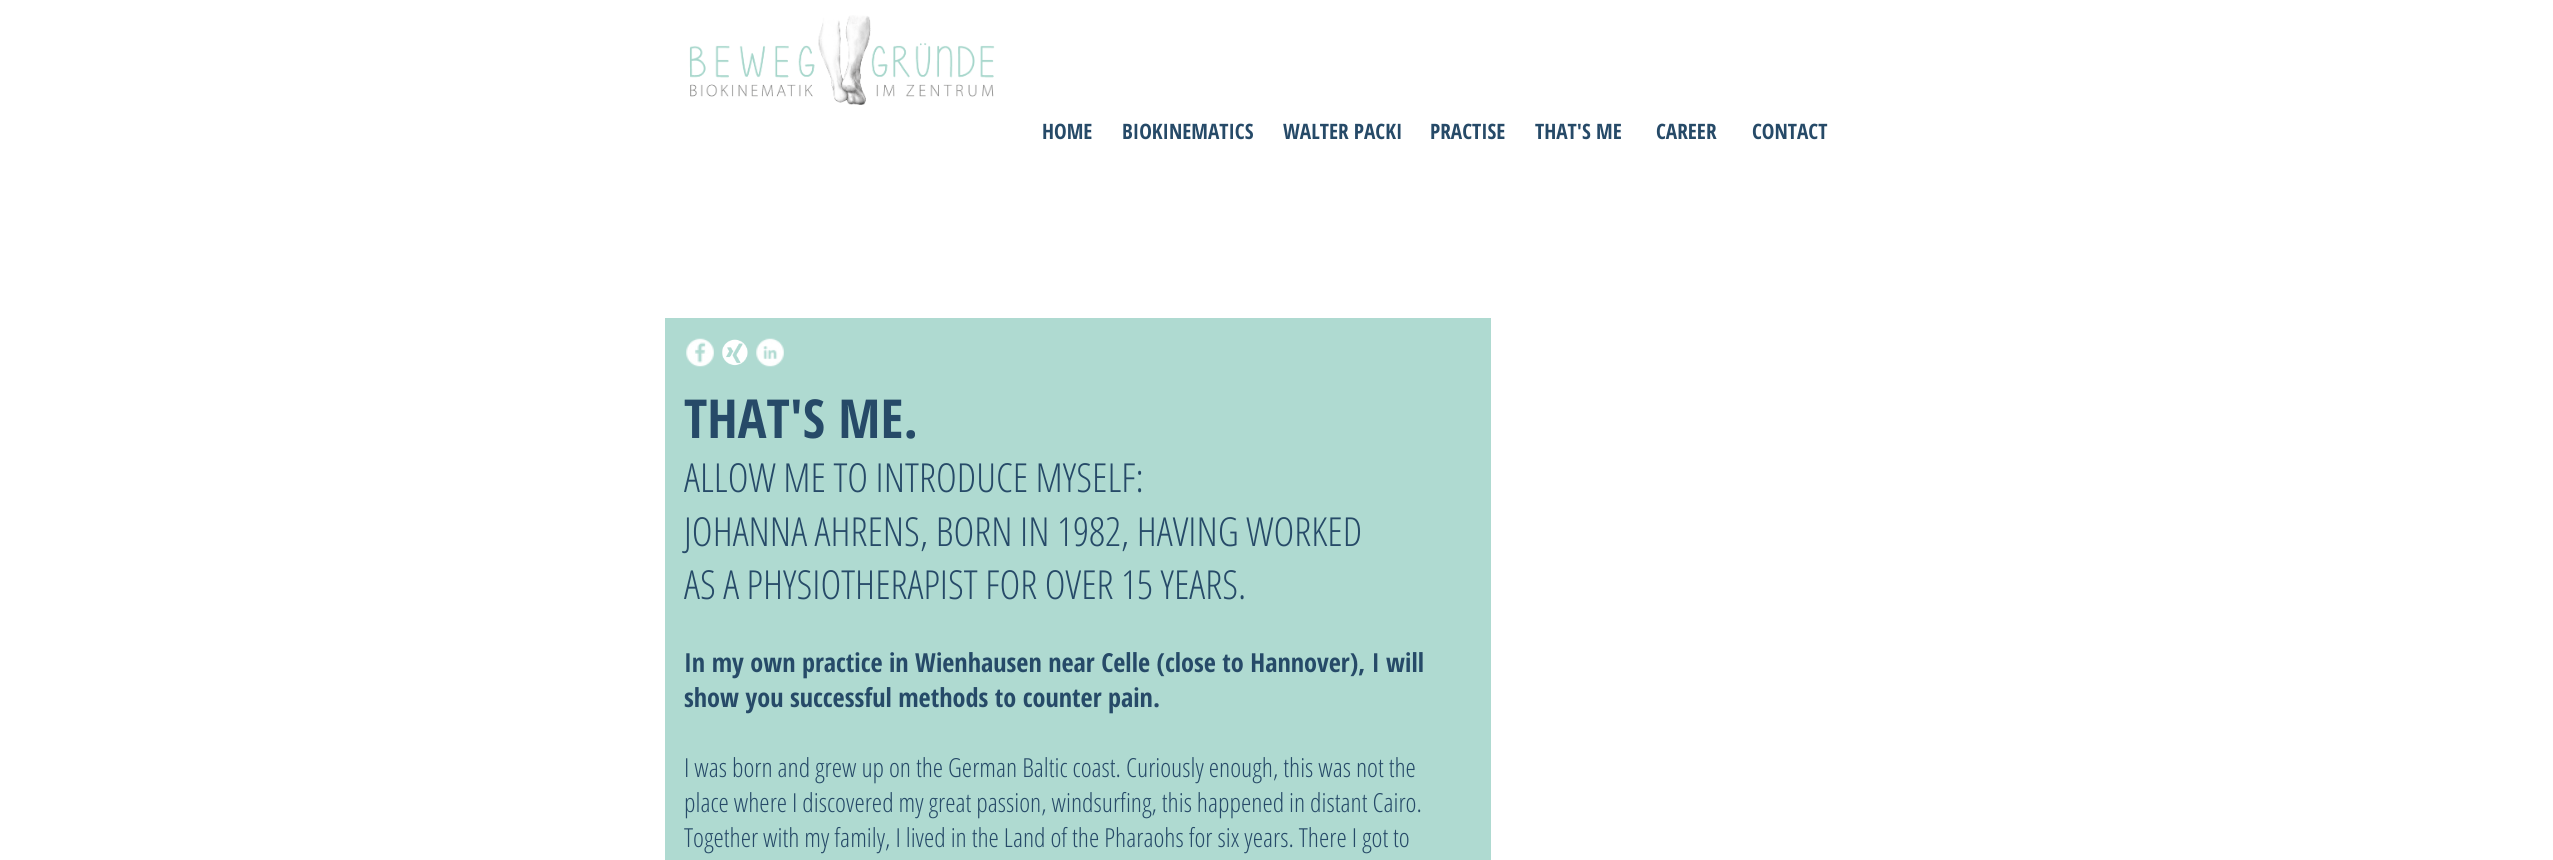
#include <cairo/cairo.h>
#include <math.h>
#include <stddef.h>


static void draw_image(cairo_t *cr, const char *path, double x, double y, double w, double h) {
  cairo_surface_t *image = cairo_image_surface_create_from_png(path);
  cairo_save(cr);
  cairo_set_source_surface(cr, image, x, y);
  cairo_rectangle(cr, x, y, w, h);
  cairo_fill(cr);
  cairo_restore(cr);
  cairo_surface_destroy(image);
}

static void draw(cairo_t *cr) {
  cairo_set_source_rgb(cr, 1, 1, 1);
  cairo_paint(cr);
  draw_image(cr, "images/1.png", 689, 15, 306, 90);
  cairo_set_source_rgb(cr, 175 / 255.0, 218 / 255.0, 209 / 255.0);
  cairo_rectangle(cr, 665, 318, 826, 542);
  cairo_fill(cr);
  draw_image(cr, "images/2.png", 686, 338, 28, 29);
  draw_image(cr, "images/3.png", 722, 339, 26, 27);
  draw_image(cr, "images/4.png", 756, 338, 28, 29);
  cairo_select_font_face(cr, "Open Sans Condensed", CAIRO_FONT_SLANT_NORMAL, CAIRO_FONT_WEIGHT_BOLD);
  cairo_set_font_size(cr, 21.25);
  cairo_set_source_rgb(cr, 38 / 255.0, 74 / 255.0, 104 / 255.0);
  cairo_move_to(cr, 1042, 139);
  cairo_show_text(cr, "HOME");
  cairo_move_to(cr, 1122, 139);
  cairo_show_text(cr, "BIOKINEMATICS");
  cairo_move_to(cr, 1283, 139);
  cairo_show_text(cr, "WALTER PACKI");
  cairo_move_to(cr, 1430, 139);
  cairo_show_text(cr, "PRACTISE");
  cairo_move_to(cr, 1535, 139);
  cairo_show_text(cr, "THAT'S ME");
  cairo_move_to(cr, 1656, 139);
  cairo_show_text(cr, "CAREER");
  cairo_move_to(cr, 1752, 139);
  cairo_show_text(cr, "CONTACT");
  cairo_set_font_size(cr, 53.75);
  cairo_move_to(cr, 684, 438);
  cairo_show_text(cr, "THAT'S ME.");
  cairo_select_font_face(cr, "Open Sans Condensed Light", CAIRO_FONT_SLANT_NORMAL, CAIRO_FONT_WEIGHT_NORMAL);
  cairo_set_font_size(cr, 40);
  cairo_move_to(cr, 684, 492);
  cairo_show_text(cr, "ALLOW ME TO INTRODUCE MYSELF:");
  cairo_move_to(cr, 684, 546);
  cairo_show_text(cr, "JOHANNA AHRENS, BORN IN 1982, HAVING WORKED");
  cairo_move_to(cr, 684, 599);
  cairo_show_text(cr, "AS A PHYSIOTHERAPIST FOR OVER 15 YEARS.");
  cairo_select_font_face(cr, "Open Sans Condensed", CAIRO_FONT_SLANT_NORMAL, CAIRO_FONT_WEIGHT_BOLD);
  cairo_set_font_size(cr, 26.25);
  cairo_move_to(cr, 684, 672);
  cairo_show_text(cr, "In my own practice in Wienhausen near Celle (close to Hannover), I will");
  cairo_move_to(cr, 684, 707);
  cairo_show_text(cr, "show you successful methods to counter pain.");
  cairo_select_font_face(cr, "Open Sans Condensed Light", CAIRO_FONT_SLANT_NORMAL, CAIRO_FONT_WEIGHT_NORMAL);
  cairo_move_to(cr, 684, 777);
  cairo_show_text(cr, "I was born and grew up on the German Baltic coast. Curiously enough, this was not the");
  cairo_move_to(cr, 684, 812);
  cairo_show_text(cr, "place where I discovered my great passion, windsurfing, this happened in distant Cairo.");
  cairo_move_to(cr, 684, 847);
  cairo_show_text(cr, "Together with my family, I lived in the Land of the Pharaohs for six years. There I got to");
}

int main(void) {
  cairo_surface_t *surface = cairo_image_surface_create(CAIRO_FORMAT_RGB24, 2553, 860);
  cairo_t *cr = cairo_create(surface);
  cairo_font_options_t *options = cairo_font_options_create();
  cairo_font_options_set_hint_metrics(options, CAIRO_HINT_METRICS_OFF);
  cairo_font_options_set_hint_style(options, CAIRO_HINT_STYLE_NONE);
  cairo_set_font_options(cr, options);
  cairo_set_miter_limit(cr, 4);
  draw(cr);
  cairo_surface_write_to_png(surface, "out.png");
  cairo_font_options_destroy(options);
  cairo_destroy(cr);
  cairo_surface_destroy(surface);
  return 0;
}
